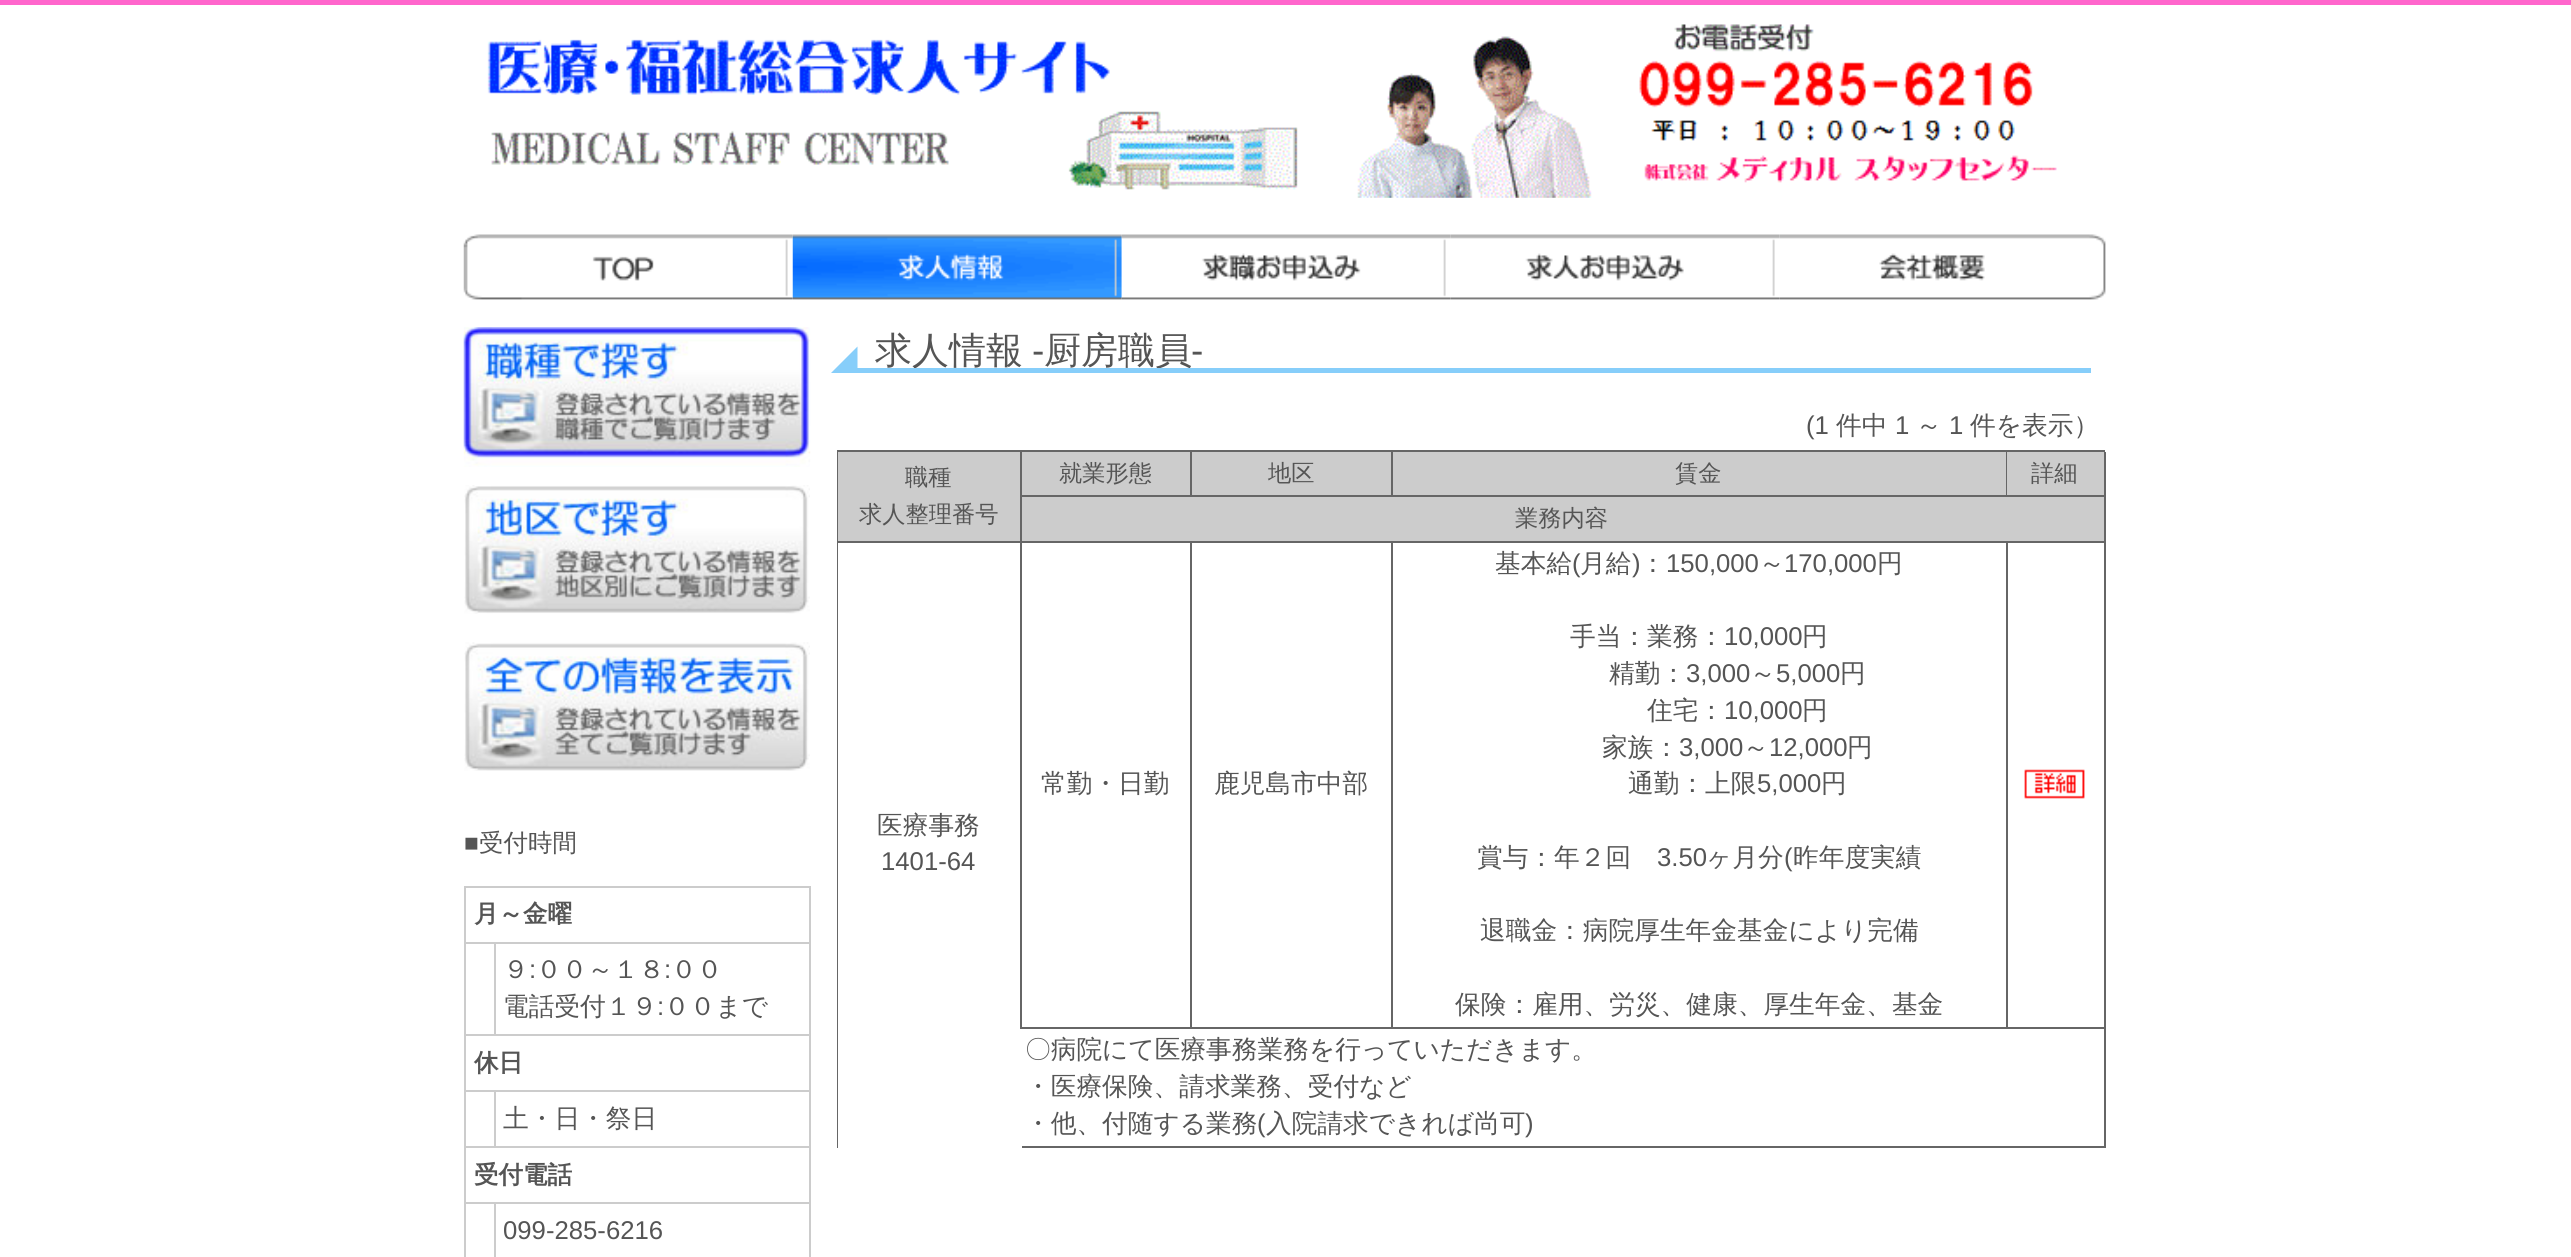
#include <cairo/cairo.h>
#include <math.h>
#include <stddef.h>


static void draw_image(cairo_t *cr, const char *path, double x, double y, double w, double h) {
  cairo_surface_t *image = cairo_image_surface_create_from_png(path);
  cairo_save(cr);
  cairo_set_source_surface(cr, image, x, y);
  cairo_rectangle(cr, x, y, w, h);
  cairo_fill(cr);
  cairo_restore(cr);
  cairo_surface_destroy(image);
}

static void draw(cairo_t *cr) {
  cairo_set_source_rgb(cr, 1, 1, 1);
  cairo_paint(cr);
  cairo_set_source_rgb(cr, 1, 102 / 255.0, 204 / 255.0);
  cairo_rectangle(cr, 0, 0, 2571, 5);
  cairo_fill(cr);
  draw_image(cr, "images/1.png", 487, 24, 1570, 174);
  draw_image(cr, "images/2.png", 463, 234, 330, 66);
  draw_image(cr, "images/3.png", 792, 234, 330, 66);
  draw_image(cr, "images/4.png", 1121, 234, 330, 66);
  draw_image(cr, "images/5.png", 1450, 234, 330, 66);
  draw_image(cr, "images/6.png", 1779, 234, 327, 66);
  draw_image(cr, "images/7.png", 463, 327, 348, 140);
  draw_image(cr, "images/8.png", 464, 485, 346, 129);
  draw_image(cr, "images/9.png", 464, 642, 346, 129);
  cairo_set_source_rgb(cr, 204 / 255.0, 204 / 255.0, 204 / 255.0);
  cairo_rectangle(cr, 464, 886, 346, 2);
  cairo_fill(cr);
  cairo_rectangle(cr, 809, 886, 2, 371);
  cairo_fill(cr);
  cairo_rectangle(cr, 464, 886, 2, 371);
  cairo_fill(cr);
  cairo_rectangle(cr, 494, 942, 316, 2);
  cairo_fill(cr);
  cairo_rectangle(cr, 464, 1034, 346, 2);
  cairo_fill(cr);
  cairo_rectangle(cr, 494, 942, 2, 94);
  cairo_fill(cr);
  cairo_rectangle(cr, 464, 942, 31, 2);
  cairo_fill(cr);
  cairo_rectangle(cr, 494, 1090, 316, 2);
  cairo_fill(cr);
  cairo_rectangle(cr, 464, 1146, 346, 2);
  cairo_fill(cr);
  cairo_rectangle(cr, 494, 1090, 2, 58);
  cairo_fill(cr);
  cairo_rectangle(cr, 464, 1090, 31, 2);
  cairo_fill(cr);
  cairo_rectangle(cr, 494, 1202, 316, 2);
  cairo_fill(cr);
  cairo_rectangle(cr, 494, 1202, 2, 55);
  cairo_fill(cr);
  cairo_rectangle(cr, 464, 1202, 31, 2);
  cairo_fill(cr);
  cairo_set_source_rgb(cr, 135 / 255.0, 206 / 255.0, 250 / 255.0);
  cairo_new_path(cr);
  cairo_move_to(cr, 857.5, 373);
  cairo_line_to(cr, 831, 373);
  cairo_line_to(cr, 857.5, 346.5);
  cairo_close_path(cr);
  cairo_fill(cr);
  cairo_set_source_rgb(cr, 102 / 255.0, 102 / 255.0, 102 / 255.0);
  cairo_rectangle(cr, 837, 450, 1268, 2);
  cairo_fill(cr);
  cairo_rectangle(cr, 837, 450, 2, 698);
  cairo_fill(cr);
  cairo_set_source_rgb(cr, 204 / 255.0, 204 / 255.0, 204 / 255.0);
  cairo_rectangle(cr, 838, 452, 182, 89);
  cairo_fill(cr);
  cairo_set_source_rgb(cr, 102 / 255.0, 102 / 255.0, 102 / 255.0);
  cairo_rectangle(cr, 1020, 452, 2, 577);
  cairo_fill(cr);
  cairo_rectangle(cr, 838, 541, 184, 2);
  cairo_fill(cr);
  cairo_set_source_rgb(cr, 204 / 255.0, 204 / 255.0, 204 / 255.0);
  cairo_rectangle(cr, 1022, 452, 168, 43);
  cairo_fill(cr);
  cairo_set_source_rgb(cr, 102 / 255.0, 102 / 255.0, 102 / 255.0);
  cairo_rectangle(cr, 1190, 452, 2, 45);
  cairo_fill(cr);
  cairo_rectangle(cr, 1022, 495, 170, 2);
  cairo_fill(cr);
  cairo_set_source_rgb(cr, 204 / 255.0, 204 / 255.0, 204 / 255.0);
  cairo_rectangle(cr, 1192, 452, 199, 43);
  cairo_fill(cr);
  cairo_set_source_rgb(cr, 102 / 255.0, 102 / 255.0, 102 / 255.0);
  cairo_rectangle(cr, 1391, 452, 2, 45);
  cairo_fill(cr);
  cairo_rectangle(cr, 1192, 495, 201, 2);
  cairo_fill(cr);
  cairo_set_source_rgb(cr, 204 / 255.0, 204 / 255.0, 204 / 255.0);
  cairo_rectangle(cr, 1393, 452, 613, 43);
  cairo_fill(cr);
  cairo_set_source_rgb(cr, 102 / 255.0, 102 / 255.0, 102 / 255.0);
  cairo_rectangle(cr, 2006, 452, 1, 45);
  cairo_fill(cr);
  cairo_rectangle(cr, 1393, 495, 614, 2);
  cairo_fill(cr);
  cairo_set_source_rgb(cr, 204 / 255.0, 204 / 255.0, 204 / 255.0);
  cairo_rectangle(cr, 2007, 452, 97, 43);
  cairo_fill(cr);
  cairo_set_source_rgb(cr, 102 / 255.0, 102 / 255.0, 102 / 255.0);
  cairo_rectangle(cr, 2104, 452, 2, 696);
  cairo_fill(cr);
  cairo_rectangle(cr, 2007, 495, 98, 2);
  cairo_fill(cr);
  cairo_set_source_rgb(cr, 204 / 255.0, 204 / 255.0, 204 / 255.0);
  cairo_rectangle(cr, 1022, 497, 1082, 44);
  cairo_fill(cr);
  cairo_set_source_rgb(cr, 102 / 255.0, 102 / 255.0, 102 / 255.0);
  cairo_rectangle(cr, 1022, 541, 1083, 2);
  cairo_fill(cr);
  cairo_set_source_rgb(cr, 1, 1, 1);
  cairo_rectangle(cr, 838, 543, 1, 605);
  cairo_fill(cr);
  cairo_set_source_rgb(cr, 102 / 255.0, 102 / 255.0, 102 / 255.0);
  cairo_rectangle(cr, 1190, 543, 2, 486);
  cairo_fill(cr);
  cairo_rectangle(cr, 1022, 1027, 170, 2);
  cairo_fill(cr);
  cairo_rectangle(cr, 1391, 543, 2, 486);
  cairo_fill(cr);
  cairo_rectangle(cr, 1192, 1027, 201, 2);
  cairo_fill(cr);
  cairo_rectangle(cr, 2006, 543, 2, 486);
  cairo_fill(cr);
  cairo_rectangle(cr, 1393, 1027, 712, 2);
  cairo_fill(cr);
  draw_image(cr, "images/10.png", 2024, 769, 61, 30);
  cairo_rectangle(cr, 1022, 1146, 1083, 2);
  cairo_fill(cr);
  cairo_select_font_face(cr, "Liberation Sans", CAIRO_FONT_SLANT_NORMAL, CAIRO_FONT_WEIGHT_NORMAL);
  cairo_set_font_size(cr, 24.5);
  cairo_set_source_rgb(cr, 85 / 255.0, 85 / 255.0, 85 / 255.0);
  cairo_move_to(cr, 464, 851);
  cairo_show_text(cr, "■");
  cairo_select_font_face(cr, "WenQuanYi Zen Hei Medium", CAIRO_FONT_SLANT_NORMAL, CAIRO_FONT_WEIGHT_NORMAL);
  cairo_move_to(cr, 479, 851);
  cairo_show_text(cr, "受付時間");
  cairo_select_font_face(cr, "WenQuanYi Zen Hei", CAIRO_FONT_SLANT_NORMAL, CAIRO_FONT_WEIGHT_BOLD);
  cairo_move_to(cr, 474, 922);
  cairo_show_text(cr, "月～金曜");
  cairo_select_font_face(cr, "WenQuanYi Zen Hei Medium", CAIRO_FONT_SLANT_NORMAL, CAIRO_FONT_WEIGHT_NORMAL);
  cairo_set_font_size(cr, 25.7);
  cairo_move_to(cr, 503, 978);
  cairo_show_text(cr, "９");
  cairo_select_font_face(cr, "Liberation Sans", CAIRO_FONT_SLANT_NORMAL, CAIRO_FONT_WEIGHT_NORMAL);
  cairo_move_to(cr, 529, 978);
  cairo_show_text(cr, ":");
  cairo_select_font_face(cr, "WenQuanYi Zen Hei Medium", CAIRO_FONT_SLANT_NORMAL, CAIRO_FONT_WEIGHT_NORMAL);
  cairo_move_to(cr, 536, 978);
  cairo_show_text(cr, "００～１８");
  cairo_select_font_face(cr, "Liberation Sans", CAIRO_FONT_SLANT_NORMAL, CAIRO_FONT_WEIGHT_NORMAL);
  cairo_move_to(cr, 664, 978);
  cairo_show_text(cr, ":");
  cairo_select_font_face(cr, "WenQuanYi Zen Hei Medium", CAIRO_FONT_SLANT_NORMAL, CAIRO_FONT_WEIGHT_NORMAL);
  cairo_move_to(cr, 671, 978);
  cairo_show_text(cr, "００");
  cairo_move_to(cr, 503, 1015);
  cairo_show_text(cr, "電話受付１９");
  cairo_select_font_face(cr, "Liberation Sans", CAIRO_FONT_SLANT_NORMAL, CAIRO_FONT_WEIGHT_NORMAL);
  cairo_move_to(cr, 657, 1015);
  cairo_show_text(cr, ":");
  cairo_select_font_face(cr, "WenQuanYi Zen Hei Medium", CAIRO_FONT_SLANT_NORMAL, CAIRO_FONT_WEIGHT_NORMAL);
  cairo_move_to(cr, 664, 1015);
  cairo_show_text(cr, "００まで");
  cairo_select_font_face(cr, "WenQuanYi Zen Hei", CAIRO_FONT_SLANT_NORMAL, CAIRO_FONT_WEIGHT_BOLD);
  cairo_set_font_size(cr, 24.5);
  cairo_move_to(cr, 474, 1071);
  cairo_show_text(cr, "休日");
  cairo_select_font_face(cr, "WenQuanYi Zen Hei Medium", CAIRO_FONT_SLANT_NORMAL, CAIRO_FONT_WEIGHT_NORMAL);
  cairo_set_font_size(cr, 25.7);
  cairo_move_to(cr, 503, 1127);
  cairo_show_text(cr, "土・日・祭日");
  cairo_select_font_face(cr, "WenQuanYi Zen Hei", CAIRO_FONT_SLANT_NORMAL, CAIRO_FONT_WEIGHT_BOLD);
  cairo_set_font_size(cr, 24.5);
  cairo_move_to(cr, 474, 1183);
  cairo_show_text(cr, "受付電話");
  cairo_select_font_face(cr, "Liberation Sans", CAIRO_FONT_SLANT_NORMAL, CAIRO_FONT_WEIGHT_NORMAL);
  cairo_set_font_size(cr, 25.7);
  cairo_move_to(cr, 503, 1239);
  cairo_show_text(cr, "099-285-6216");
  cairo_select_font_face(cr, "WenQuanYi Zen Hei Medium", CAIRO_FONT_SLANT_NORMAL, CAIRO_FONT_WEIGHT_NORMAL);
  cairo_set_font_size(cr, 37);
  cairo_move_to(cr, 875, 363);
  cairo_show_text(cr, "求人情報");
  cairo_select_font_face(cr, "Liberation Sans", CAIRO_FONT_SLANT_NORMAL, CAIRO_FONT_WEIGHT_NORMAL);
  cairo_move_to(cr, 1032, 363);
  cairo_show_text(cr, "-");
  cairo_select_font_face(cr, "WenQuanYi Zen Hei Medium", CAIRO_FONT_SLANT_NORMAL, CAIRO_FONT_WEIGHT_NORMAL);
  cairo_move_to(cr, 1044, 363);
  cairo_show_text(cr, "厨房職員");
  cairo_select_font_face(cr, "Liberation Sans", CAIRO_FONT_SLANT_NORMAL, CAIRO_FONT_WEIGHT_NORMAL);
  cairo_move_to(cr, 1191, 363);
  cairo_show_text(cr, "-");
  cairo_set_source_rgb(cr, 135 / 255.0, 206 / 255.0, 250 / 255.0);
  cairo_rectangle(cr, 849, 368, 1242, 5);
  cairo_fill(cr);
  cairo_set_font_size(cr, 25.7);
  cairo_set_source_rgb(cr, 85 / 255.0, 85 / 255.0, 85 / 255.0);
  cairo_move_to(cr, 1806, 434);
  cairo_show_text(cr, "(1");
  cairo_select_font_face(cr, "WenQuanYi Zen Hei Medium", CAIRO_FONT_SLANT_NORMAL, CAIRO_FONT_WEIGHT_NORMAL);
  cairo_move_to(cr, 1836, 434);
  cairo_show_text(cr, "件中");
  cairo_select_font_face(cr, "Liberation Sans", CAIRO_FONT_SLANT_NORMAL, CAIRO_FONT_WEIGHT_NORMAL);
  cairo_move_to(cr, 1895, 434);
  cairo_show_text(cr, "1");
  cairo_select_font_face(cr, "WenQuanYi Zen Hei Medium", CAIRO_FONT_SLANT_NORMAL, CAIRO_FONT_WEIGHT_NORMAL);
  cairo_move_to(cr, 1916, 434);
  cairo_show_text(cr, "～");
  cairo_select_font_face(cr, "Liberation Sans", CAIRO_FONT_SLANT_NORMAL, CAIRO_FONT_WEIGHT_NORMAL);
  cairo_move_to(cr, 1949, 434);
  cairo_show_text(cr, "1");
  cairo_select_font_face(cr, "WenQuanYi Zen Hei Medium", CAIRO_FONT_SLANT_NORMAL, CAIRO_FONT_WEIGHT_NORMAL);
  cairo_move_to(cr, 1970, 434);
  cairo_show_text(cr, "件を表示）");
  cairo_set_font_size(cr, 23.25);
  cairo_move_to(cr, 905, 485);
  cairo_show_text(cr, "職種");
  cairo_move_to(cr, 859, 522);
  cairo_show_text(cr, "求人整理番号");
  cairo_move_to(cr, 1059, 481);
  cairo_show_text(cr, "就業形態");
  cairo_move_to(cr, 1268, 481);
  cairo_show_text(cr, "地区");
  cairo_move_to(cr, 1675, 481);
  cairo_show_text(cr, "賃金");
  cairo_move_to(cr, 2031, 481);
  cairo_show_text(cr, "詳細");
  cairo_move_to(cr, 1515, 526);
  cairo_show_text(cr, "業務内容");
  cairo_set_font_size(cr, 25.7);
  cairo_move_to(cr, 1041, 792);
  cairo_show_text(cr, "常勤・日勤");
  cairo_move_to(cr, 1214, 792);
  cairo_show_text(cr, "鹿児島市中部");
  cairo_move_to(cr, 1495, 572);
  cairo_show_text(cr, "基本給");
  cairo_select_font_face(cr, "Liberation Sans", CAIRO_FONT_SLANT_NORMAL, CAIRO_FONT_WEIGHT_NORMAL);
  cairo_move_to(cr, 1572, 572);
  cairo_show_text(cr, "(");
  cairo_select_font_face(cr, "WenQuanYi Zen Hei Medium", CAIRO_FONT_SLANT_NORMAL, CAIRO_FONT_WEIGHT_NORMAL);
  cairo_move_to(cr, 1580, 572);
  cairo_show_text(cr, "月給");
  cairo_select_font_face(cr, "Liberation Sans", CAIRO_FONT_SLANT_NORMAL, CAIRO_FONT_WEIGHT_NORMAL);
  cairo_move_to(cr, 1632, 572);
  cairo_show_text(cr, ")");
  cairo_select_font_face(cr, "WenQuanYi Zen Hei Medium", CAIRO_FONT_SLANT_NORMAL, CAIRO_FONT_WEIGHT_NORMAL);
  cairo_move_to(cr, 1640, 572);
  cairo_show_text(cr, "：");
  cairo_select_font_face(cr, "Liberation Sans", CAIRO_FONT_SLANT_NORMAL, CAIRO_FONT_WEIGHT_NORMAL);
  cairo_move_to(cr, 1666, 572);
  cairo_show_text(cr, "150,000");
  cairo_select_font_face(cr, "WenQuanYi Zen Hei Medium", CAIRO_FONT_SLANT_NORMAL, CAIRO_FONT_WEIGHT_NORMAL);
  cairo_move_to(cr, 1759, 572);
  cairo_show_text(cr, "～");
  cairo_select_font_face(cr, "Liberation Sans", CAIRO_FONT_SLANT_NORMAL, CAIRO_FONT_WEIGHT_NORMAL);
  cairo_move_to(cr, 1784, 572);
  cairo_show_text(cr, "170,000");
  cairo_select_font_face(cr, "WenQuanYi Zen Hei Medium", CAIRO_FONT_SLANT_NORMAL, CAIRO_FONT_WEIGHT_NORMAL);
  cairo_move_to(cr, 1877, 572);
  cairo_show_text(cr, "円");
  cairo_move_to(cr, 1570, 645);
  cairo_show_text(cr, "手当：業務：");
  cairo_select_font_face(cr, "Liberation Sans", CAIRO_FONT_SLANT_NORMAL, CAIRO_FONT_WEIGHT_NORMAL);
  cairo_move_to(cr, 1724, 645);
  cairo_show_text(cr, "10,000");
  cairo_select_font_face(cr, "WenQuanYi Zen Hei Medium", CAIRO_FONT_SLANT_NORMAL, CAIRO_FONT_WEIGHT_NORMAL);
  cairo_move_to(cr, 1802, 645);
  cairo_show_text(cr, "円");
  cairo_move_to(cr, 1609, 682);
  cairo_show_text(cr, "精勤：");
  cairo_select_font_face(cr, "Liberation Sans", CAIRO_FONT_SLANT_NORMAL, CAIRO_FONT_WEIGHT_NORMAL);
  cairo_move_to(cr, 1686, 682);
  cairo_show_text(cr, "3,000");
  cairo_select_font_face(cr, "WenQuanYi Zen Hei Medium", CAIRO_FONT_SLANT_NORMAL, CAIRO_FONT_WEIGHT_NORMAL);
  cairo_move_to(cr, 1750, 682);
  cairo_show_text(cr, "～");
  cairo_select_font_face(cr, "Liberation Sans", CAIRO_FONT_SLANT_NORMAL, CAIRO_FONT_WEIGHT_NORMAL);
  cairo_move_to(cr, 1776, 682);
  cairo_show_text(cr, "5,000");
  cairo_select_font_face(cr, "WenQuanYi Zen Hei Medium", CAIRO_FONT_SLANT_NORMAL, CAIRO_FONT_WEIGHT_NORMAL);
  cairo_move_to(cr, 1840, 682);
  cairo_show_text(cr, "円");
  cairo_move_to(cr, 1647, 719);
  cairo_show_text(cr, "住宅：");
  cairo_select_font_face(cr, "Liberation Sans", CAIRO_FONT_SLANT_NORMAL, CAIRO_FONT_WEIGHT_NORMAL);
  cairo_move_to(cr, 1724, 719);
  cairo_show_text(cr, "10,000");
  cairo_select_font_face(cr, "WenQuanYi Zen Hei Medium", CAIRO_FONT_SLANT_NORMAL, CAIRO_FONT_WEIGHT_NORMAL);
  cairo_move_to(cr, 1802, 719);
  cairo_show_text(cr, "円");
  cairo_move_to(cr, 1602, 756);
  cairo_show_text(cr, "家族：");
  cairo_select_font_face(cr, "Liberation Sans", CAIRO_FONT_SLANT_NORMAL, CAIRO_FONT_WEIGHT_NORMAL);
  cairo_move_to(cr, 1679, 756);
  cairo_show_text(cr, "3,000");
  cairo_select_font_face(cr, "WenQuanYi Zen Hei Medium", CAIRO_FONT_SLANT_NORMAL, CAIRO_FONT_WEIGHT_NORMAL);
  cairo_move_to(cr, 1743, 756);
  cairo_show_text(cr, "～");
  cairo_select_font_face(cr, "Liberation Sans", CAIRO_FONT_SLANT_NORMAL, CAIRO_FONT_WEIGHT_NORMAL);
  cairo_move_to(cr, 1769, 756);
  cairo_show_text(cr, "12,000");
  cairo_select_font_face(cr, "WenQuanYi Zen Hei Medium", CAIRO_FONT_SLANT_NORMAL, CAIRO_FONT_WEIGHT_NORMAL);
  cairo_move_to(cr, 1847, 756);
  cairo_show_text(cr, "円");
  cairo_move_to(cr, 1628, 792);
  cairo_show_text(cr, "通勤：上限");
  cairo_select_font_face(cr, "Liberation Sans", CAIRO_FONT_SLANT_NORMAL, CAIRO_FONT_WEIGHT_NORMAL);
  cairo_move_to(cr, 1757, 792);
  cairo_show_text(cr, "5,000");
  cairo_select_font_face(cr, "WenQuanYi Zen Hei Medium", CAIRO_FONT_SLANT_NORMAL, CAIRO_FONT_WEIGHT_NORMAL);
  cairo_move_to(cr, 1821, 792);
  cairo_show_text(cr, "円");
  cairo_move_to(cr, 1477, 866);
  cairo_show_text(cr, "賞与：年２回");
  cairo_select_font_face(cr, "Liberation Sans", CAIRO_FONT_SLANT_NORMAL, CAIRO_FONT_WEIGHT_NORMAL);
  cairo_move_to(cr, 1657, 866);
  cairo_show_text(cr, "3.50");
  cairo_select_font_face(cr, "WenQuanYi Zen Hei Medium", CAIRO_FONT_SLANT_NORMAL, CAIRO_FONT_WEIGHT_NORMAL);
  cairo_move_to(cr, 1706, 866);
  cairo_show_text(cr, "ヶ月分");
  cairo_select_font_face(cr, "Liberation Sans", CAIRO_FONT_SLANT_NORMAL, CAIRO_FONT_WEIGHT_NORMAL);
  cairo_move_to(cr, 1784, 866);
  cairo_show_text(cr, "(");
  cairo_select_font_face(cr, "WenQuanYi Zen Hei Medium", CAIRO_FONT_SLANT_NORMAL, CAIRO_FONT_WEIGHT_NORMAL);
  cairo_move_to(cr, 1793, 866);
  cairo_show_text(cr, "昨年度実績");
  cairo_move_to(cr, 1480, 939);
  cairo_show_text(cr, "退職金：病院厚生年金基金により完備");
  cairo_move_to(cr, 1455, 1013);
  cairo_show_text(cr, "保険：雇用、労災、健康、厚生年金、基金");
  cairo_move_to(cr, 877, 834);
  cairo_show_text(cr, "医療事務");
  cairo_select_font_face(cr, "Liberation Sans", CAIRO_FONT_SLANT_NORMAL, CAIRO_FONT_WEIGHT_NORMAL);
  cairo_move_to(cr, 881, 870);
  cairo_show_text(cr, "1401-64");
  cairo_select_font_face(cr, "WenQuanYi Zen Hei Medium", CAIRO_FONT_SLANT_NORMAL, CAIRO_FONT_WEIGHT_NORMAL);
  cairo_move_to(cr, 1025, 1058);
  cairo_show_text(cr, "〇病院にて医療事務業務を行っていただきます。");
  cairo_move_to(cr, 1025, 1095);
  cairo_show_text(cr, "・医療保険、請求業務、受付など");
  cairo_move_to(cr, 1025, 1132);
  cairo_show_text(cr, "・他、付随する業務");
  cairo_select_font_face(cr, "Liberation Sans", CAIRO_FONT_SLANT_NORMAL, CAIRO_FONT_WEIGHT_NORMAL);
  cairo_move_to(cr, 1257, 1132);
  cairo_show_text(cr, "(");
  cairo_select_font_face(cr, "WenQuanYi Zen Hei Medium", CAIRO_FONT_SLANT_NORMAL, CAIRO_FONT_WEIGHT_NORMAL);
  cairo_move_to(cr, 1266, 1132);
  cairo_show_text(cr, "入院請求できれば尚可");
  cairo_select_font_face(cr, "Liberation Sans", CAIRO_FONT_SLANT_NORMAL, CAIRO_FONT_WEIGHT_NORMAL);
  cairo_move_to(cr, 1525, 1132);
  cairo_show_text(cr, ")");
}

int main(void) {
  cairo_surface_t *surface = cairo_image_surface_create(CAIRO_FORMAT_RGB24, 2571, 1257);
  cairo_t *cr = cairo_create(surface);
  cairo_font_options_t *options = cairo_font_options_create();
  cairo_font_options_set_hint_metrics(options, CAIRO_HINT_METRICS_OFF);
  cairo_font_options_set_hint_style(options, CAIRO_HINT_STYLE_NONE);
  cairo_set_font_options(cr, options);
  cairo_set_miter_limit(cr, 4);
  draw(cr);
  cairo_surface_write_to_png(surface, "out.png");
  cairo_font_options_destroy(options);
  cairo_destroy(cr);
  cairo_surface_destroy(surface);
  return 0;
}
